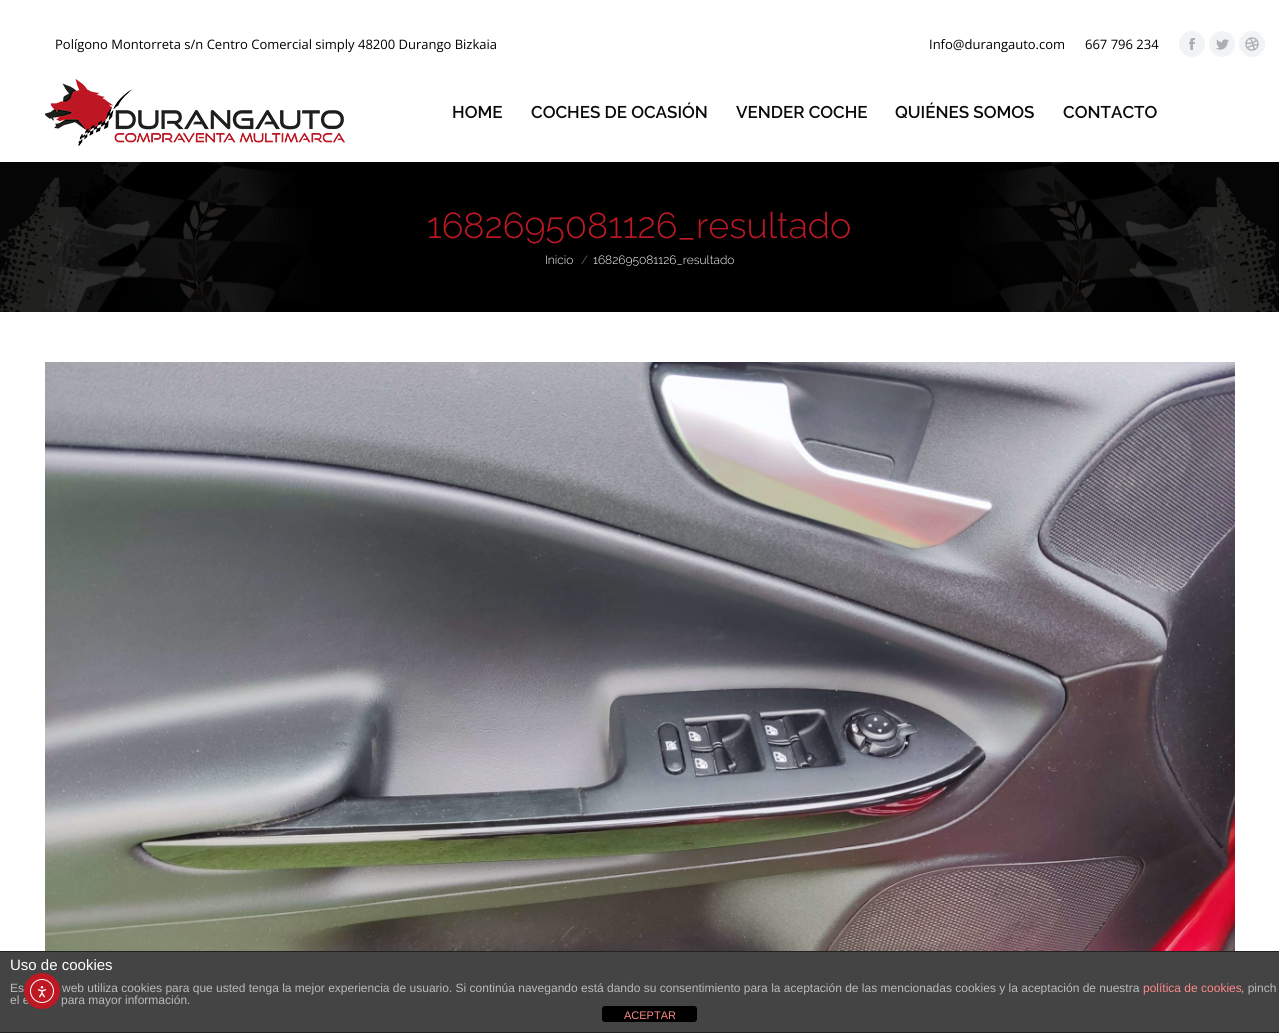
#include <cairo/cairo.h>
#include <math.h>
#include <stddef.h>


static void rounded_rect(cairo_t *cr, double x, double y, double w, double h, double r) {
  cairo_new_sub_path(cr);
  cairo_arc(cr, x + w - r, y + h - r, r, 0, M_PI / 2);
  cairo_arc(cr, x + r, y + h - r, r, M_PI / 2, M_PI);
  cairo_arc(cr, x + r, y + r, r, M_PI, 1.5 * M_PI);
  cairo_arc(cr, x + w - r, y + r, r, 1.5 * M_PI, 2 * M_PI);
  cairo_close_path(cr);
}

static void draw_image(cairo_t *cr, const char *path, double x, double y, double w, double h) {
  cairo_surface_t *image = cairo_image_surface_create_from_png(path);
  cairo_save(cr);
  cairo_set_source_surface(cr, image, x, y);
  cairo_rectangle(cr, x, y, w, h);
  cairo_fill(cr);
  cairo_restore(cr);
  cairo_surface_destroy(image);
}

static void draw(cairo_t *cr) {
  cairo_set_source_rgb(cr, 1, 1, 1);
  cairo_paint(cr);
  cairo_set_source_rgb(cr, 242 / 255.0, 243 / 255.0, 244 / 255.0);
  cairo_arc(cr, 1192, 44, 13, 0, 2 * M_PI);
  cairo_fill(cr);
  draw_image(cr, "images/1.png", 1189, 38, 6, 12);
  cairo_arc(cr, 1222, 44, 13, 0, 2 * M_PI);
  cairo_fill(cr);
  draw_image(cr, "images/2.png", 1216, 39, 13, 11);
  cairo_arc(cr, 1252, 44, 13, 0, 2 * M_PI);
  cairo_fill(cr);
  draw_image(cr, "images/3.png", 1245, 37, 14, 14);
  draw_image(cr, "images/4.png", 45, 79, 300, 67);
  draw_image(cr, "images/5.png", 0, 162, 1279, 150);
  draw_image(cr, "images/6.png", 45, 362, 1190, 589);
  cairo_set_source_rgb(cr, 68 / 255.0, 68 / 255.0, 68 / 255.0);
  cairo_rectangle(cr, 0, 952, 1279, 80);
  cairo_fill(cr);
  cairo_set_source_rgb(cr, 34 / 255.0, 34 / 255.0, 34 / 255.0);
  cairo_rectangle(cr, 0, 951, 1279, 1);
  cairo_fill(cr);
  cairo_rectangle(cr, 0, 1032, 1279, 1);
  cairo_fill(cr);
  cairo_set_source_rgb(cr, 0, 0, 0);
  rounded_rect(cr, 602, 1006, 95, 16, 3);
  cairo_fill(cr);
  cairo_select_font_face(cr, "Open Sans", CAIRO_FONT_SLANT_NORMAL, CAIRO_FONT_WEIGHT_NORMAL);
  cairo_set_font_size(cr, 13);
  cairo_move_to(cr, 55, 49);
  cairo_show_text(cr, "Polígono Montorreta s/n Centro Comercial simply 48200 Durango Bizkaia");
  cairo_move_to(cr, 929, 49);
  cairo_show_text(cr, "Info@durangauto.com");
  cairo_move_to(cr, 1085, 49);
  cairo_show_text(cr, "667 796 234");
  cairo_select_font_face(cr, "Raleway SemiBold", CAIRO_FONT_SLANT_NORMAL, CAIRO_FONT_WEIGHT_NORMAL);
  cairo_set_font_size(cr, 17);
  cairo_set_source_rgb(cr, 10 / 255.0, 10 / 255.0, 10 / 255.0);
  cairo_move_to(cr, 452, 118);
  cairo_show_text(cr, "HOME");
  cairo_move_to(cr, 531, 118);
  cairo_show_text(cr, "COCHES DE OCASIÓN");
  cairo_move_to(cr, 736, 118);
  cairo_show_text(cr, "VENDER COCHE");
  cairo_move_to(cr, 895, 118);
  cairo_show_text(cr, "QUIÉNES SOMOS");
  cairo_move_to(cr, 1063, 118);
  cairo_show_text(cr, "CONTACTO");
  cairo_select_font_face(cr, "Raleway Light", CAIRO_FONT_SLANT_NORMAL, CAIRO_FONT_WEIGHT_NORMAL);
  cairo_set_font_size(cr, 36);
  cairo_set_source_rgb(cr, 190 / 255.0, 24 / 255.0, 36 / 255.0);
  cairo_move_to(cr, 427, 238);
  cairo_show_text(cr, "1682695081126_resultado");
  cairo_set_font_size(cr, 12);
  cairo_set_source_rgb(cr, 1, 1, 1);
  cairo_move_to(cr, 545, 264);
  cairo_show_text(cr, "Inicio");
  cairo_set_source_rgb(cr, 128 / 255.0, 128 / 255.0, 128 / 255.0);
  cairo_move_to(cr, 581, 264);
  cairo_show_text(cr, "/");
  cairo_set_source_rgb(cr, 1, 1, 1);
  cairo_move_to(cr, 593, 264);
  cairo_show_text(cr, "1682695081126_resultado");
  cairo_select_font_face(cr, "Liberation Sans", CAIRO_FONT_SLANT_NORMAL, CAIRO_FONT_WEIGHT_NORMAL);
  cairo_set_font_size(cr, 15);
  cairo_move_to(cr, 10, 970);
  cairo_show_text(cr, "Uso de cookies");
  cairo_set_font_size(cr, 12);
  cairo_set_source_rgb(cr, 187 / 255.0, 187 / 255.0, 187 / 255.0);
  cairo_move_to(cr, 10, 992);
  cairo_show_text(cr, "Es");
  cairo_move_to(cr, 62, 992);
  cairo_show_text(cr, "web utiliza cookies para que usted tenga la mejor experiencia de usuario. Si continúa navegando está dando su consentimiento para la aceptación de las mencionadas cookies y la aceptación de nuestra");
  cairo_set_source_rgb(cr, 1, 136 / 255.0, 136 / 255.0);
  cairo_move_to(cr, 1143, 992);
  cairo_show_text(cr, "política de cookies");
  cairo_set_source_rgb(cr, 187 / 255.0, 187 / 255.0, 187 / 255.0);
  cairo_move_to(cr, 1241, 992);
  cairo_show_text(cr, ", pinch");
  cairo_move_to(cr, 10, 1004);
  cairo_show_text(cr, "el e");
  cairo_move_to(cr, 61, 1004);
  cairo_show_text(cr, "para mayor información.");
  cairo_set_font_size(cr, 11);
  cairo_set_source_rgb(cr, 1, 136 / 255.0, 136 / 255.0);
  cairo_move_to(cr, 624, 1019);
  cairo_show_text(cr, "ACEPTAR");
  cairo_set_source_rgb(cr, 190 / 255.0, 24 / 255.0, 36 / 255.0);
  cairo_new_path(cr);
  cairo_arc(cr, 42, 991, 18, 0, 2 * M_PI);
  cairo_fill(cr);
  cairo_arc(cr, 42, 991, 11.5, 0, 2 * M_PI);
  cairo_set_source_rgb(cr, 1, 1, 1);
  cairo_set_line_width(cr, 1);
  cairo_stroke(cr);
  draw_image(cr, "images/7.png", 37, 986, 10, 12);
}

int main(void) {
  cairo_surface_t *surface = cairo_image_surface_create(CAIRO_FORMAT_RGB24, 1279, 1033);
  cairo_t *cr = cairo_create(surface);
  cairo_font_options_t *options = cairo_font_options_create();
  cairo_font_options_set_hint_metrics(options, CAIRO_HINT_METRICS_OFF);
  cairo_font_options_set_hint_style(options, CAIRO_HINT_STYLE_NONE);
  cairo_set_font_options(cr, options);
  cairo_set_miter_limit(cr, 4);
  draw(cr);
  cairo_surface_write_to_png(surface, "out.png");
  cairo_font_options_destroy(options);
  cairo_destroy(cr);
  cairo_surface_destroy(surface);
  return 0;
}
